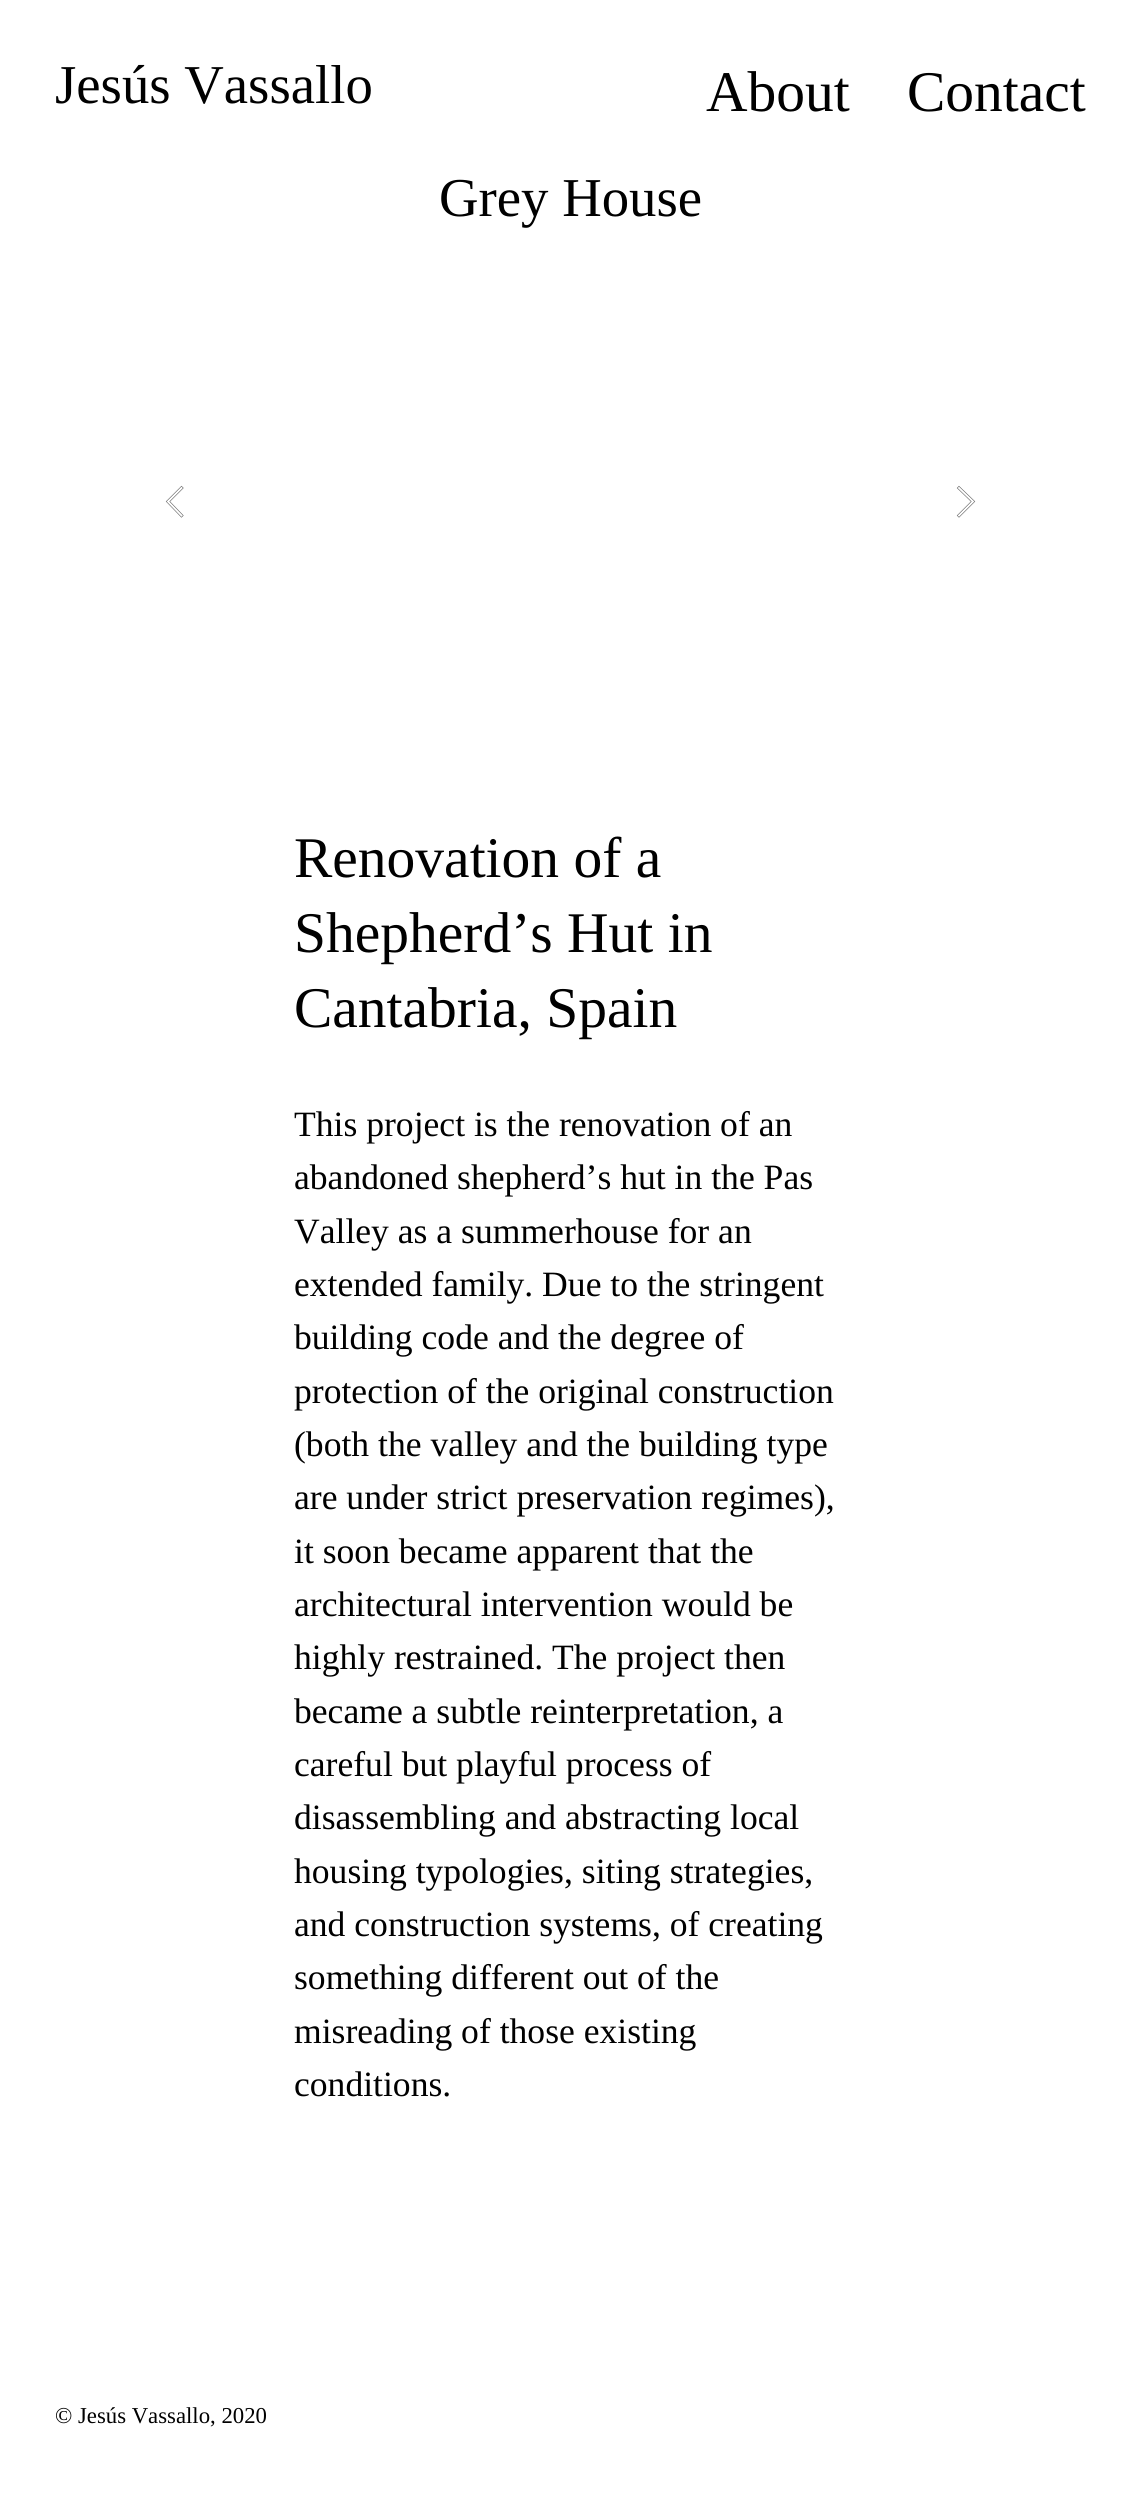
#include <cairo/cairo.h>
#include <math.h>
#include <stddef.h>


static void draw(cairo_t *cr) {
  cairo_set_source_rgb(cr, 1, 1, 1);
  cairo_paint(cr);
  cairo_new_path(cr);
  cairo_move_to(cr, 181.5, 515.5);
  cairo_line_to(cr, 168, 501.5);
  cairo_line_to(cr, 181.5, 488);
  cairo_set_source_rgb(cr, 102 / 255.0, 102 / 255.0, 102 / 255.0);
  cairo_set_line_width(cr, 3.1);
  cairo_set_line_cap(cr, CAIRO_LINE_CAP_SQUARE);
  cairo_stroke(cr);
  cairo_new_path(cr);
  cairo_move_to(cr, 181.5, 515.5);
  cairo_line_to(cr, 168, 501.5);
  cairo_line_to(cr, 181.5, 488);
  cairo_set_source_rgb(cr, 1, 1, 1);
  cairo_set_line_width(cr, 1.9);
  cairo_stroke(cr);
  cairo_new_path(cr);
  cairo_move_to(cr, 959, 515.5);
  cairo_line_to(cr, 973, 501.5);
  cairo_line_to(cr, 959, 488);
  cairo_set_source_rgb(cr, 102 / 255.0, 102 / 255.0, 102 / 255.0);
  cairo_set_line_width(cr, 3.1);
  cairo_stroke(cr);
  cairo_new_path(cr);
  cairo_move_to(cr, 959, 515.5);
  cairo_line_to(cr, 973, 501.5);
  cairo_line_to(cr, 959, 488);
  cairo_set_source_rgb(cr, 1, 1, 1);
  cairo_set_line_width(cr, 1.9);
  cairo_stroke(cr);
  cairo_select_font_face(cr, "Liberation Serif", CAIRO_FONT_SLANT_NORMAL, CAIRO_FONT_WEIGHT_NORMAL);
  cairo_set_font_size(cr, 54.75);
  cairo_set_source_rgb(cr, 0, 0, 0);
  cairo_move_to(cr, 55, 103);
  cairo_show_text(cr, "Jesús Vassallo");
  cairo_set_font_size(cr, 57.5);
  cairo_move_to(cr, 706, 111);
  cairo_show_text(cr, "About");
  cairo_move_to(cr, 907, 111);
  cairo_show_text(cr, "Contact");
  cairo_set_font_size(cr, 54.75);
  cairo_move_to(cr, 439, 216);
  cairo_show_text(cr, "Grey House");
  cairo_set_font_size(cr, 57.5);
  cairo_move_to(cr, 294, 877);
  cairo_show_text(cr, "Renovation of a");
  cairo_move_to(cr, 294, 952);
  cairo_show_text(cr, "Shepherd’s Hut in");
  cairo_move_to(cr, 294, 1027);
  cairo_show_text(cr, "Cantabria, Spain");
  cairo_set_font_size(cr, 35.6);
  cairo_move_to(cr, 294, 1136);
  cairo_show_text(cr, "This project is the renovation of an");
  cairo_move_to(cr, 294, 1189);
  cairo_show_text(cr, "abandoned shepherd’s hut in the Pas");
  cairo_move_to(cr, 294, 1243);
  cairo_show_text(cr, "Valley as a summerhouse for an");
  cairo_move_to(cr, 294, 1296);
  cairo_show_text(cr, "extended family. Due to the stringent");
  cairo_move_to(cr, 294, 1349);
  cairo_show_text(cr, "building code and the degree of");
  cairo_move_to(cr, 294, 1403);
  cairo_show_text(cr, "protection of the original construction");
  cairo_move_to(cr, 294, 1456);
  cairo_show_text(cr, "(both the valley and the building type");
  cairo_move_to(cr, 294, 1509);
  cairo_show_text(cr, "are under strict preservation regimes),");
  cairo_move_to(cr, 294, 1563);
  cairo_show_text(cr, "it soon became apparent that the");
  cairo_move_to(cr, 294, 1616);
  cairo_show_text(cr, "architectural intervention would be");
  cairo_move_to(cr, 294, 1669);
  cairo_show_text(cr, "highly restrained. The project then");
  cairo_move_to(cr, 294, 1723);
  cairo_show_text(cr, "became a subtle reinterpretation, a");
  cairo_move_to(cr, 294, 1776);
  cairo_show_text(cr, "careful but playful process of");
  cairo_move_to(cr, 294, 1829);
  cairo_show_text(cr, "disassembling and abstracting local");
  cairo_move_to(cr, 294, 1883);
  cairo_show_text(cr, "housing typologies, siting strategies,");
  cairo_move_to(cr, 294, 1936);
  cairo_show_text(cr, "and construction systems, of creating");
  cairo_move_to(cr, 294, 1989);
  cairo_show_text(cr, "something different out of the");
  cairo_move_to(cr, 294, 2043);
  cairo_show_text(cr, "misreading of those existing");
  cairo_move_to(cr, 294, 2096);
  cairo_show_text(cr, "conditions.");
  cairo_set_font_size(cr, 22.75);
  cairo_move_to(cr, 55, 2423);
  cairo_show_text(cr, "© Jesús Vassallo, 2020");
}

int main(void) {
  cairo_surface_t *surface = cairo_image_surface_create(CAIRO_FORMAT_RGB24, 1140, 2495);
  cairo_t *cr = cairo_create(surface);
  cairo_font_options_t *options = cairo_font_options_create();
  cairo_font_options_set_hint_metrics(options, CAIRO_HINT_METRICS_OFF);
  cairo_font_options_set_hint_style(options, CAIRO_HINT_STYLE_NONE);
  cairo_set_font_options(cr, options);
  cairo_set_miter_limit(cr, 4);
  draw(cr);
  cairo_surface_write_to_png(surface, "out.png");
  cairo_font_options_destroy(options);
  cairo_destroy(cr);
  cairo_surface_destroy(surface);
  return 0;
}
